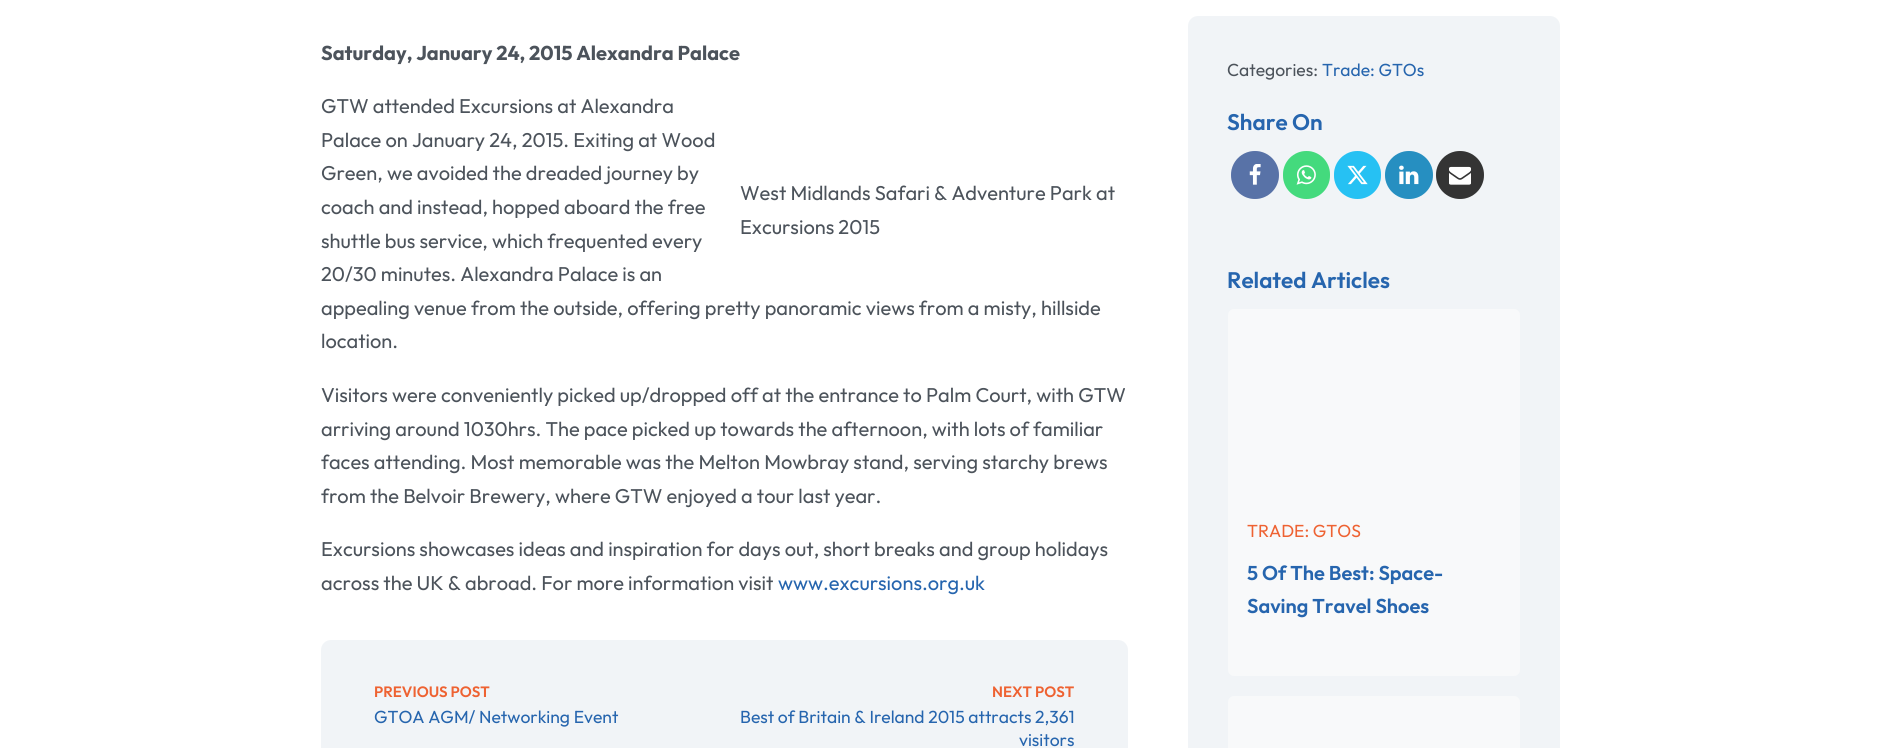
#include <cairo/cairo.h>
#include <math.h>
#include <stddef.h>


static void rounded_rect(cairo_t *cr, double x, double y, double w, double h, double r) {
  cairo_new_sub_path(cr);
  cairo_arc(cr, x + w - r, y + h - r, r, 0, M_PI / 2);
  cairo_arc(cr, x + r, y + h - r, r, M_PI / 2, M_PI);
  cairo_arc(cr, x + r, y + r, r, M_PI, 1.5 * M_PI);
  cairo_arc(cr, x + w - r, y + r, r, 1.5 * M_PI, 2 * M_PI);
  cairo_close_path(cr);
}

static void draw_image(cairo_t *cr, const char *path, double x, double y, double w, double h) {
  cairo_surface_t *image = cairo_image_surface_create_from_png(path);
  cairo_save(cr);
  cairo_set_source_surface(cr, image, x, y);
  cairo_rectangle(cr, x, y, w, h);
  cairo_fill(cr);
  cairo_restore(cr);
  cairo_surface_destroy(image);
}

static void draw(cairo_t *cr) {
  cairo_set_source_rgb(cr, 1, 1, 1);
  cairo_paint(cr);
  cairo_set_source_rgb(cr, 241 / 255.0, 244 / 255.0, 247 / 255.0);
  rounded_rect(cr, 321, 640, 807, 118, 10);
  cairo_fill(cr);
  rounded_rect(cr, 1188, 16, 372, 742, 10);
  cairo_fill(cr);
  cairo_set_source_rgb(cr, 59 / 255.0, 89 / 255.0, 152 / 255.0);
  cairo_arc(cr, 1255, 175, 24, 0, 2 * M_PI);
  cairo_fill(cr);
  cairo_set_source_rgba(cr, 1, 1, 1, 0.15);
  cairo_arc(cr, 1255, 175, 24, 0, 2 * M_PI);
  cairo_fill(cr);
  draw_image(cr, "images/1.png", 1249, 164, 12, 21);
  cairo_set_source_rgb(cr, 35 / 255.0, 211 / 255.0, 102 / 255.0);
  rounded_rect(cr, 1283, 151, 47, 48, 23.5);
  cairo_fill(cr);
  cairo_set_source_rgba(cr, 1, 1, 1, 0.15);
  rounded_rect(cr, 1283, 151, 47, 48, 23.5);
  cairo_fill(cr);
  draw_image(cr, "images/2.png", 1296, 165, 20, 20);
  cairo_set_source_rgb(cr, 0, 182 / 255.0, 241 / 255.0);
  rounded_rect(cr, 1334, 151, 47, 48, 23.5);
  cairo_fill(cr);
  cairo_set_source_rgba(cr, 1, 1, 1, 0.15);
  rounded_rect(cr, 1334, 151, 47, 48, 23.5);
  cairo_fill(cr);
  draw_image(cr, "images/3.png", 1347, 165, 21, 20);
  cairo_set_source_rgb(cr, 0, 123 / 255.0, 182 / 255.0);
  cairo_arc(cr, 1409, 175, 24, 0, 2 * M_PI);
  cairo_fill(cr);
  cairo_set_source_rgba(cr, 1, 1, 1, 0.15);
  cairo_arc(cr, 1409, 175, 24, 0, 2 * M_PI);
  cairo_fill(cr);
  draw_image(cr, "images/4.png", 1399, 165, 20, 20);
  cairo_set_source_rgb(cr, 17 / 255.0, 17 / 255.0, 17 / 255.0);
  cairo_arc(cr, 1460, 175, 24, 0, 2 * M_PI);
  cairo_fill(cr);
  cairo_set_source_rgba(cr, 1, 1, 1, 0.15);
  cairo_arc(cr, 1460, 175, 24, 0, 2 * M_PI);
  cairo_fill(cr);
  draw_image(cr, "images/5.png", 1449, 166, 22, 19);
  cairo_set_source_rgb(cr, 248 / 255.0, 249 / 255.0, 250 / 255.0);
  rounded_rect(cr, 1228, 309, 292, 367, 6);
  cairo_fill(cr);
  rounded_rect(cr, 1228, 696, 292, 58, 6);
  cairo_fill(cr);
  cairo_select_font_face(cr, "Outfit", CAIRO_FONT_SLANT_NORMAL, CAIRO_FONT_WEIGHT_BOLD);
  cairo_set_font_size(cr, 20);
  cairo_set_source_rgb(cr, 76 / 255.0, 83 / 255.0, 91 / 255.0);
  cairo_move_to(cr, 321, 60);
  cairo_show_text(cr, "Saturday, January 24, 2015 Alexandra Palace");
  cairo_select_font_face(cr, "Outfit", CAIRO_FONT_SLANT_NORMAL, CAIRO_FONT_WEIGHT_NORMAL);
  cairo_move_to(cr, 321, 113);
  cairo_show_text(cr, "GTW attended Excursions at Alexandra");
  cairo_move_to(cr, 321, 147);
  cairo_show_text(cr, "Palace on January 24, 2015. Exiting at Wood");
  cairo_move_to(cr, 321, 180);
  cairo_show_text(cr, "Green, we avoided the dreaded journey by");
  cairo_move_to(cr, 321, 214);
  cairo_show_text(cr, "coach and instead, hopped aboard the free");
  cairo_move_to(cr, 321, 248);
  cairo_show_text(cr, "shuttle bus service, which frequented every");
  cairo_move_to(cr, 321, 281);
  cairo_show_text(cr, "20/30 minutes. Alexandra Palace is an");
  cairo_move_to(cr, 321, 315);
  cairo_show_text(cr, "appealing venue from the outside, offering pretty panoramic views from a misty, hillside");
  cairo_move_to(cr, 321, 348);
  cairo_show_text(cr, "location.");
  cairo_move_to(cr, 740, 200);
  cairo_show_text(cr, "West Midlands Safari & Adventure Park at");
  cairo_move_to(cr, 740, 234);
  cairo_show_text(cr, "Excursions 2015");
  cairo_move_to(cr, 321, 402);
  cairo_show_text(cr, "Visitors were conveniently picked up/dropped off at the entrance to Palm Court, with GTW");
  cairo_move_to(cr, 321, 436);
  cairo_show_text(cr, "arriving around 1030hrs. The pace picked up towards the afternoon, with lots of familiar");
  cairo_move_to(cr, 321, 469);
  cairo_show_text(cr, "faces attending. Most memorable was the Melton Mowbray stand, serving starchy brews");
  cairo_move_to(cr, 321, 503);
  cairo_show_text(cr, "from the Belvoir Brewery, where GTW enjoyed a tour last year.");
  cairo_move_to(cr, 321, 556);
  cairo_show_text(cr, "Excursions showcases ideas and inspiration for days out, short breaks and group holidays");
  cairo_move_to(cr, 321, 590);
  cairo_show_text(cr, "across the UK & abroad. For more information visit");
  cairo_set_source_rgb(cr, 38 / 255.0, 101 / 255.0, 174 / 255.0);
  cairo_move_to(cr, 778, 590);
  cairo_show_text(cr, "www.excursions.org.uk");
  cairo_select_font_face(cr, "Outfit SemiBold", CAIRO_FONT_SLANT_NORMAL, CAIRO_FONT_WEIGHT_NORMAL);
  cairo_set_font_size(cr, 15);
  cairo_set_source_rgb(cr, 238 / 255.0, 98 / 255.0, 50 / 255.0);
  cairo_move_to(cr, 374, 697);
  cairo_show_text(cr, "PREVIOUS POST");
  cairo_select_font_face(cr, "Outfit", CAIRO_FONT_SLANT_NORMAL, CAIRO_FONT_WEIGHT_NORMAL);
  cairo_set_font_size(cr, 17.5);
  cairo_set_source_rgb(cr, 38 / 255.0, 101 / 255.0, 174 / 255.0);
  cairo_move_to(cr, 374, 723);
  cairo_show_text(cr, "GTOA AGM/ Networking Event");
  cairo_select_font_face(cr, "Outfit SemiBold", CAIRO_FONT_SLANT_NORMAL, CAIRO_FONT_WEIGHT_NORMAL);
  cairo_set_font_size(cr, 15);
  cairo_set_source_rgb(cr, 238 / 255.0, 98 / 255.0, 50 / 255.0);
  cairo_move_to(cr, 992, 697);
  cairo_show_text(cr, "NEXT POST");
  cairo_select_font_face(cr, "Outfit", CAIRO_FONT_SLANT_NORMAL, CAIRO_FONT_WEIGHT_NORMAL);
  cairo_set_font_size(cr, 17.5);
  cairo_set_source_rgb(cr, 38 / 255.0, 101 / 255.0, 174 / 255.0);
  cairo_move_to(cr, 740, 723);
  cairo_show_text(cr, "Best of Britain & Ireland 2015 attracts 2,361");
  cairo_move_to(cr, 1019, 746);
  cairo_show_text(cr, "visitors");
  cairo_set_source_rgb(cr, 76 / 255.0, 83 / 255.0, 91 / 255.0);
  cairo_move_to(cr, 1227, 76);
  cairo_show_text(cr, "Categories:");
  cairo_set_source_rgb(cr, 38 / 255.0, 101 / 255.0, 174 / 255.0);
  cairo_move_to(cr, 1322, 76);
  cairo_show_text(cr, "Trade: GTOs");
  cairo_select_font_face(cr, "Outfit SemiBold", CAIRO_FONT_SLANT_NORMAL, CAIRO_FONT_WEIGHT_NORMAL);
  cairo_set_font_size(cr, 22.5);
  cairo_move_to(cr, 1227, 130);
  cairo_show_text(cr, "Share On");
  cairo_move_to(cr, 1227, 288);
  cairo_show_text(cr, "Related Articles");
  cairo_select_font_face(cr, "Outfit", CAIRO_FONT_SLANT_NORMAL, CAIRO_FONT_WEIGHT_NORMAL);
  cairo_set_font_size(cr, 17.5);
  cairo_set_source_rgb(cr, 238 / 255.0, 98 / 255.0, 50 / 255.0);
  cairo_move_to(cr, 1247, 537);
  cairo_show_text(cr, "TRADE: GTOS");
  cairo_select_font_face(cr, "Outfit SemiBold", CAIRO_FONT_SLANT_NORMAL, CAIRO_FONT_WEIGHT_NORMAL);
  cairo_set_font_size(cr, 20);
  cairo_set_source_rgb(cr, 38 / 255.0, 101 / 255.0, 174 / 255.0);
  cairo_move_to(cr, 1247, 580);
  cairo_show_text(cr, "5 Of The Best: Space-");
  cairo_move_to(cr, 1247, 613);
  cairo_show_text(cr, "Saving Travel Shoes");
}

int main(void) {
  cairo_surface_t *surface = cairo_image_surface_create(CAIRO_FORMAT_RGB24, 1881, 748);
  cairo_t *cr = cairo_create(surface);
  cairo_font_options_t *options = cairo_font_options_create();
  cairo_font_options_set_hint_metrics(options, CAIRO_HINT_METRICS_OFF);
  cairo_font_options_set_hint_style(options, CAIRO_HINT_STYLE_NONE);
  cairo_set_font_options(cr, options);
  cairo_set_miter_limit(cr, 4);
  draw(cr);
  cairo_surface_write_to_png(surface, "out.png");
  cairo_font_options_destroy(options);
  cairo_destroy(cr);
  cairo_surface_destroy(surface);
  return 0;
}
